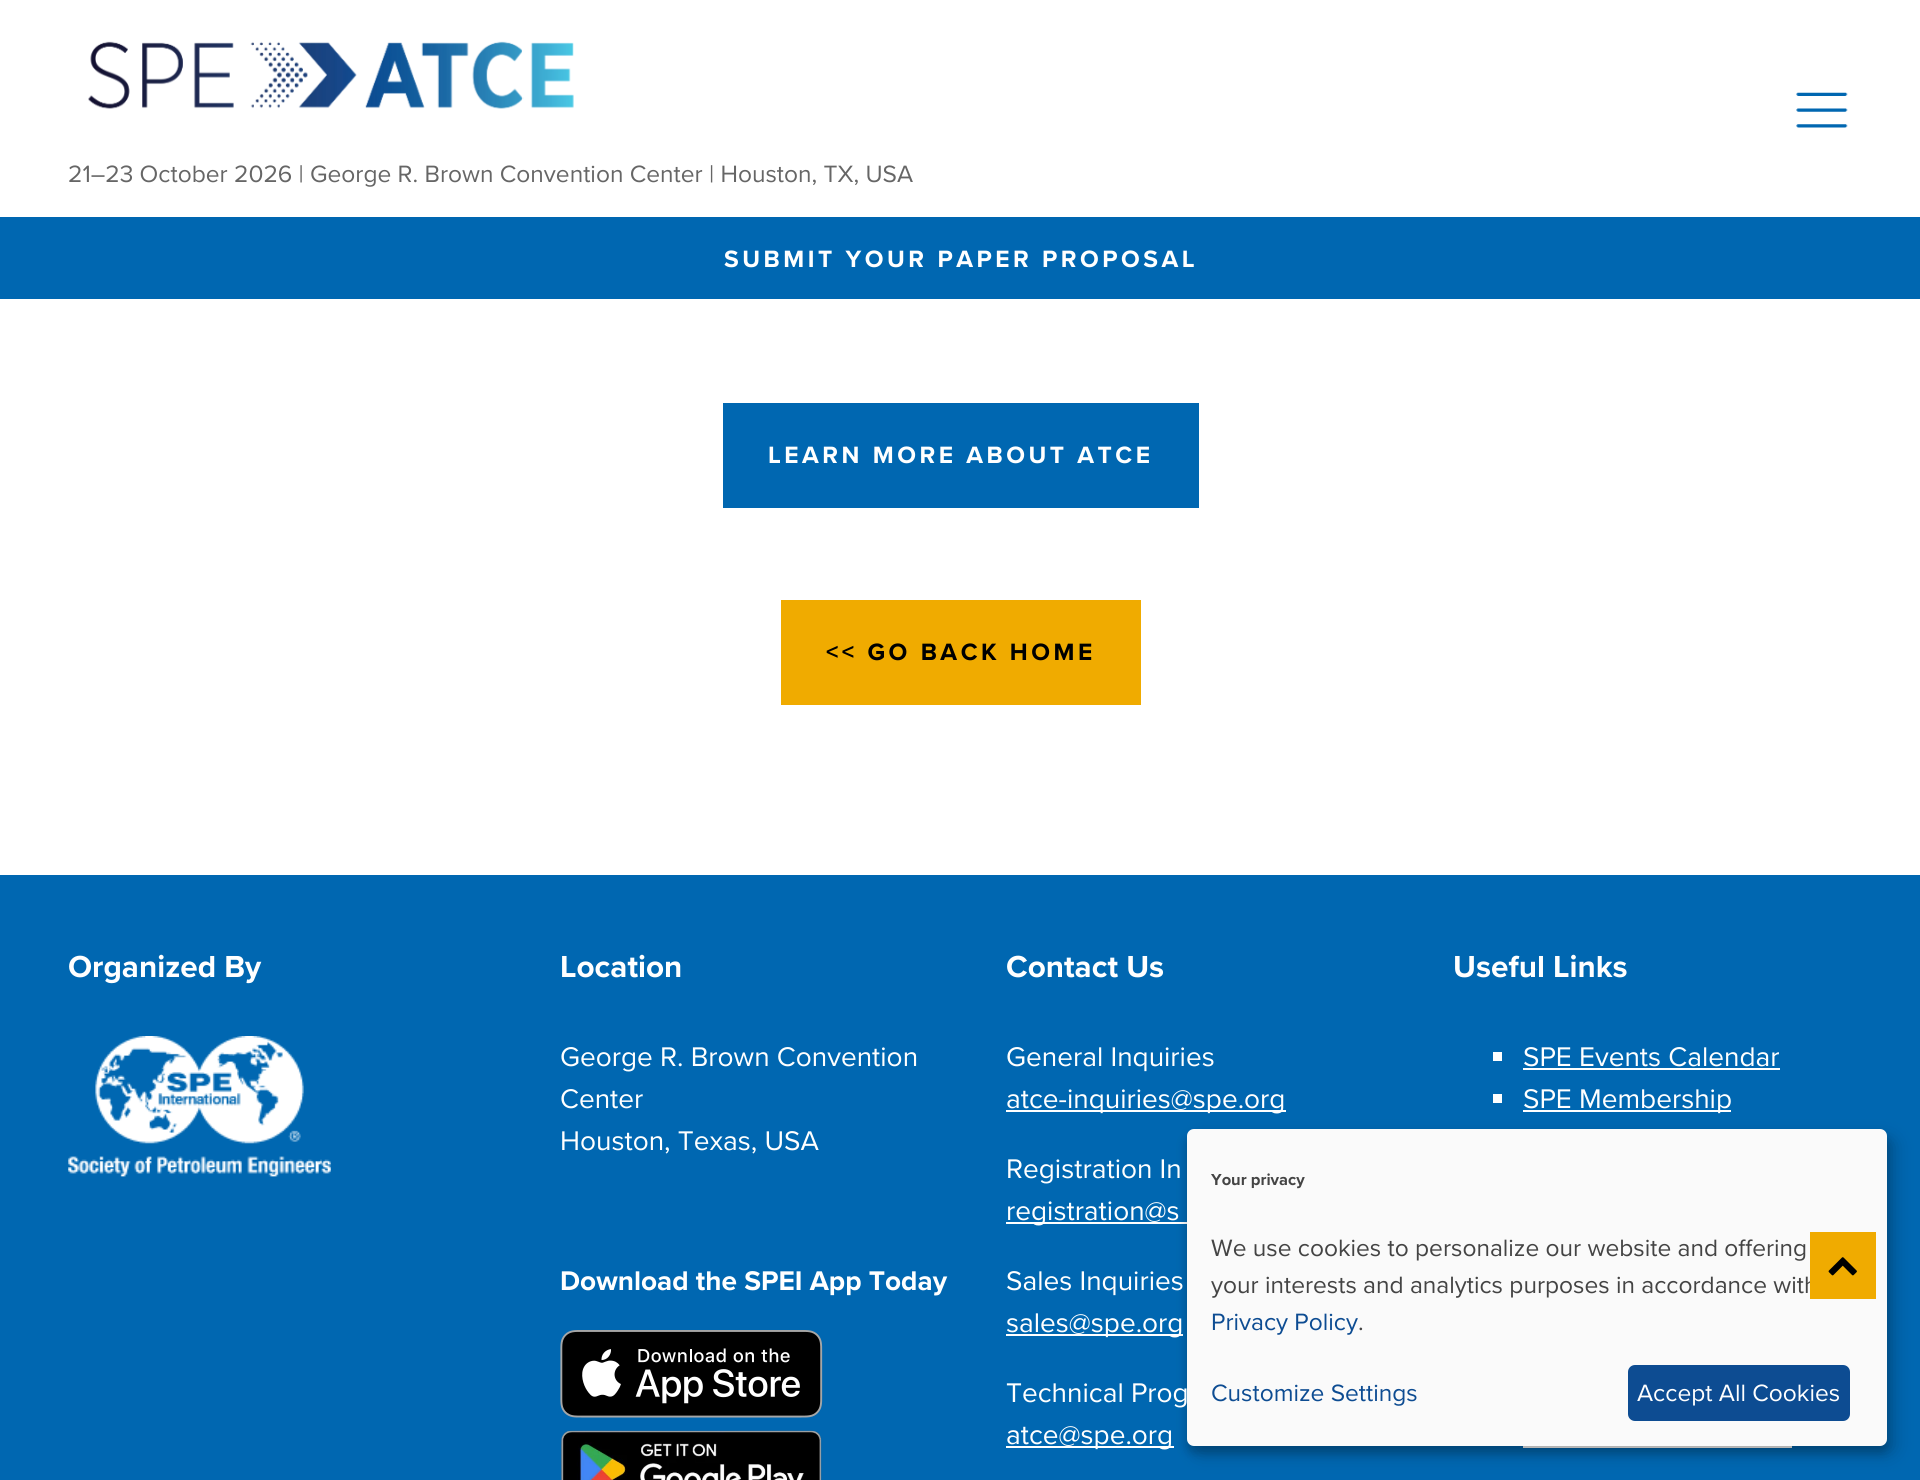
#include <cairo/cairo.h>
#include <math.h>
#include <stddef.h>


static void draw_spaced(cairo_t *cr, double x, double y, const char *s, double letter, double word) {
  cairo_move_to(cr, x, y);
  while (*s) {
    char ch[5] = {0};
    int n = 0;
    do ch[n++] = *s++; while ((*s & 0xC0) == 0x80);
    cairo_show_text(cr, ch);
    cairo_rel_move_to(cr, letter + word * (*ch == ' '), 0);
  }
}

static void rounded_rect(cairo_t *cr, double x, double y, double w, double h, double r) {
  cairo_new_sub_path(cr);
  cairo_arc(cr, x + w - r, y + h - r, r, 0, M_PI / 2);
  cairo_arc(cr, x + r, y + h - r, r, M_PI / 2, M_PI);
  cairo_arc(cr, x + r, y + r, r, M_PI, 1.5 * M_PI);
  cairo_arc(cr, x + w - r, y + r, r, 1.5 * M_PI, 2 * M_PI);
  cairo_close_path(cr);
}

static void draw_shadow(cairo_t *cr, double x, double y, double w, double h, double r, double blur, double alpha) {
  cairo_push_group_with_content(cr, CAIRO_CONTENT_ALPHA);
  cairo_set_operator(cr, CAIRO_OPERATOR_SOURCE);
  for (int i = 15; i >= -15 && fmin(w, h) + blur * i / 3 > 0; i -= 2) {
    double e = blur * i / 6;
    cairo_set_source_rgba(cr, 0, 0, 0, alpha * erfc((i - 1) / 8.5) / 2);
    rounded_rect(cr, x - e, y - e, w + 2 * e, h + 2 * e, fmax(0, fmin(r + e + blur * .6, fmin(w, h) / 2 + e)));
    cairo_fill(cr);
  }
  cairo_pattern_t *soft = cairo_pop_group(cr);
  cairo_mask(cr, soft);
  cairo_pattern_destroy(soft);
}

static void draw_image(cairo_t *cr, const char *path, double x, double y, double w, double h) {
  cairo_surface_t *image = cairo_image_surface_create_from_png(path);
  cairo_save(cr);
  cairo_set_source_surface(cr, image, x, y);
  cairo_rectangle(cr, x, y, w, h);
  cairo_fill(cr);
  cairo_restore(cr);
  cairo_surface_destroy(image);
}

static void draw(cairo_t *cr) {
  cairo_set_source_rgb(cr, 1, 1, 1);
  cairo_paint(cr);
  draw_image(cr, "images/1.png", 1796, 92, 52, 36);
  draw_image(cr, "images/2.png", 88, 41, 486, 68);
  cairo_set_source_rgb(cr, 0, 103 / 255.0, 177 / 255.0);
  cairo_rectangle(cr, 0, 217, 1920, 82);
  cairo_fill(cr);
  cairo_rectangle(cr, 723, 403, 476, 105);
  cairo_fill(cr);
  cairo_set_source_rgb(cr, 240 / 255.0, 171 / 255.0, 0);
  cairo_rectangle(cr, 781, 600, 360, 105);
  cairo_fill(cr);
  cairo_set_source_rgb(cr, 0, 103 / 255.0, 177 / 255.0);
  cairo_rectangle(cr, 0, 875, 1920, 605);
  cairo_fill(cr);
  draw_image(cr, "images/3.png", 68, 1036, 263, 141);
  draw_image(cr, "images/4.png", 560, 1330, 263, 88);
  draw_image(cr, "images/5.png", 561, 1430, 261, 50);
  cairo_set_source_rgb(cr, 1, 1, 1);
  cairo_rectangle(cr, 1006, 1110, 280, 2);
  cairo_fill(cr);
  cairo_rectangle(cr, 1006, 1222, 181, 2);
  cairo_fill(cr);
  cairo_rectangle(cr, 1006, 1334, 177, 2);
  cairo_fill(cr);
  cairo_rectangle(cr, 1006, 1446, 168, 2);
  cairo_fill(cr);
  cairo_rectangle(cr, 1493, 1052, 9, 9);
  cairo_fill(cr);
  cairo_rectangle(cr, 1523, 1068, 257, 2);
  cairo_fill(cr);
  cairo_rectangle(cr, 1493, 1094, 9, 9);
  cairo_fill(cr);
  cairo_rectangle(cr, 1523, 1110, 208, 2);
  cairo_fill(cr);
  cairo_rectangle(cr, 1523, 1446, 269, 2);
  cairo_fill(cr);
  cairo_set_source_rgb(cr, 0, 0, 0);
  draw_shadow(cr, 1195, 1138, 700, 316, 7, 9, 0.19);
  draw_shadow(cr, 1187, 1136, 700, 317, 7, 5, 0.2);
  cairo_set_source_rgb(cr, 250 / 255.0, 250 / 255.0, 250 / 255.0);
  rounded_rect(cr, 1187, 1129, 700, 317, 7);
  cairo_fill(cr);
  cairo_set_source_rgb(cr, 13 / 255.0, 76 / 255.0, 146 / 255.0);
  rounded_rect(cr, 1628, 1365, 222, 56, 7);
  cairo_fill(cr);
  cairo_select_font_face(cr, "Proxima Nova", CAIRO_FONT_SLANT_NORMAL, CAIRO_FONT_WEIGHT_NORMAL);
  cairo_set_font_size(cr, 24.5);
  cairo_set_source_rgb(cr, 102 / 255.0, 102 / 255.0, 102 / 255.0);
  cairo_move_to(cr, 68, 182);
  cairo_show_text(cr, "21–23 October 2026 | George R. Brown Convention Center | Houston, TX, USA");
  cairo_select_font_face(cr, "Proxima Nova", CAIRO_FONT_SLANT_NORMAL, CAIRO_FONT_WEIGHT_BOLD);
  cairo_set_source_rgb(cr, 1, 1, 1);
  draw_spaced(cr, 724, 267, "SUBMIT YOUR PAPER PROPOSAL", 3.5, 0);
  draw_spaced(cr, 768, 463, "LEARN MORE ABOUT ATCE", 3.5, 0);
  cairo_set_source_rgb(cr, 0, 0, 0);
  draw_spaced(cr, 826, 660, "<< GO BACK HOME", 3.5, 0);
  cairo_set_font_size(cr, 31.5);
  cairo_set_source_rgb(cr, 1, 1, 1);
  cairo_move_to(cr, 68, 977);
  cairo_show_text(cr, "Organized By");
  cairo_move_to(cr, 560, 977);
  cairo_show_text(cr, "Location");
  cairo_select_font_face(cr, "Proxima Nova", CAIRO_FONT_SLANT_NORMAL, CAIRO_FONT_WEIGHT_NORMAL);
  cairo_set_font_size(cr, 28);
  cairo_move_to(cr, 560, 1066);
  cairo_show_text(cr, "George R. Brown Convention");
  cairo_move_to(cr, 560, 1108);
  cairo_show_text(cr, "Center");
  cairo_move_to(cr, 560, 1150);
  cairo_show_text(cr, "Houston, Texas, USA");
  cairo_select_font_face(cr, "Proxima Nova", CAIRO_FONT_SLANT_NORMAL, CAIRO_FONT_WEIGHT_BOLD);
  cairo_move_to(cr, 560, 1290);
  cairo_show_text(cr, "Download the SPEI App Today");
  cairo_set_font_size(cr, 31.5);
  cairo_move_to(cr, 1006, 977);
  cairo_show_text(cr, "Contact Us");
  cairo_select_font_face(cr, "Proxima Nova", CAIRO_FONT_SLANT_NORMAL, CAIRO_FONT_WEIGHT_NORMAL);
  cairo_set_font_size(cr, 28);
  cairo_move_to(cr, 1006, 1066);
  cairo_show_text(cr, "General Inquiries");
  cairo_move_to(cr, 1006, 1108);
  cairo_show_text(cr, "atce-inquiries@spe.org");
  cairo_move_to(cr, 1006, 1178);
  cairo_show_text(cr, "Registration In");
  cairo_move_to(cr, 1006, 1220);
  cairo_show_text(cr, "registration@s");
  cairo_move_to(cr, 1006, 1290);
  cairo_show_text(cr, "Sales Inquiries");
  cairo_move_to(cr, 1006, 1332);
  cairo_show_text(cr, "sales@spe.org");
  cairo_move_to(cr, 1006, 1402);
  cairo_show_text(cr, "Technical Prog");
  cairo_move_to(cr, 1006, 1444);
  cairo_show_text(cr, "atce@spe.org");
  cairo_select_font_face(cr, "Proxima Nova", CAIRO_FONT_SLANT_NORMAL, CAIRO_FONT_WEIGHT_BOLD);
  cairo_set_font_size(cr, 31.5);
  cairo_move_to(cr, 1453, 977);
  cairo_show_text(cr, "Useful Links");
  cairo_select_font_face(cr, "Proxima Nova", CAIRO_FONT_SLANT_NORMAL, CAIRO_FONT_WEIGHT_NORMAL);
  cairo_set_font_size(cr, 28);
  cairo_move_to(cr, 1523, 1066);
  cairo_show_text(cr, "SPE Events Calendar");
  cairo_move_to(cr, 1523, 1108);
  cairo_show_text(cr, "SPE Membership");
  cairo_select_font_face(cr, "Proxima Nova", CAIRO_FONT_SLANT_NORMAL, CAIRO_FONT_WEIGHT_BOLD);
  cairo_set_font_size(cr, 16.5);
  cairo_set_source_rgb(cr, 68 / 255.0, 68 / 255.0, 68 / 255.0);
  cairo_move_to(cr, 1211, 1185);
  cairo_show_text(cr, "Your privacy");
  cairo_select_font_face(cr, "Proxima Nova", CAIRO_FONT_SLANT_NORMAL, CAIRO_FONT_WEIGHT_NORMAL);
  cairo_set_font_size(cr, 24.5);
  cairo_move_to(cr, 1211, 1256);
  cairo_show_text(cr, "We use cookies to personalize our website and offering");
  cairo_move_to(cr, 1211, 1293);
  cairo_show_text(cr, "your interests and analytics purposes in accordance with");
  cairo_set_source_rgb(cr, 240 / 255.0, 171 / 255.0, 0);
  cairo_rectangle(cr, 1810, 1232, 66, 67);
  cairo_fill(cr);
  draw_image(cr, "images/6.png", 1828, 1257, 29, 19);
  cairo_set_source_rgb(cr, 13 / 255.0, 76 / 255.0, 146 / 255.0);
  cairo_move_to(cr, 1211, 1330);
  cairo_show_text(cr, "Privacy Policy");
  cairo_set_source_rgb(cr, 68 / 255.0, 68 / 255.0, 68 / 255.0);
  cairo_move_to(cr, 1358, 1330);
  cairo_show_text(cr, ".");
  cairo_set_source_rgb(cr, 13 / 255.0, 76 / 255.0, 146 / 255.0);
  cairo_move_to(cr, 1211, 1401);
  cairo_show_text(cr, "Customize Settings");
  cairo_set_source_rgb(cr, 1, 1, 1);
  cairo_move_to(cr, 1637, 1401);
  cairo_show_text(cr, "Accept All Cookies");
}

int main(void) {
  cairo_surface_t *surface = cairo_image_surface_create(CAIRO_FORMAT_RGB24, 1920, 1480);
  cairo_t *cr = cairo_create(surface);
  cairo_font_options_t *options = cairo_font_options_create();
  cairo_font_options_set_hint_metrics(options, CAIRO_HINT_METRICS_OFF);
  cairo_font_options_set_hint_style(options, CAIRO_HINT_STYLE_NONE);
  cairo_set_font_options(cr, options);
  cairo_set_miter_limit(cr, 4);
  draw(cr);
  cairo_surface_write_to_png(surface, "out.png");
  cairo_font_options_destroy(options);
  cairo_destroy(cr);
  cairo_surface_destroy(surface);
  return 0;
}
